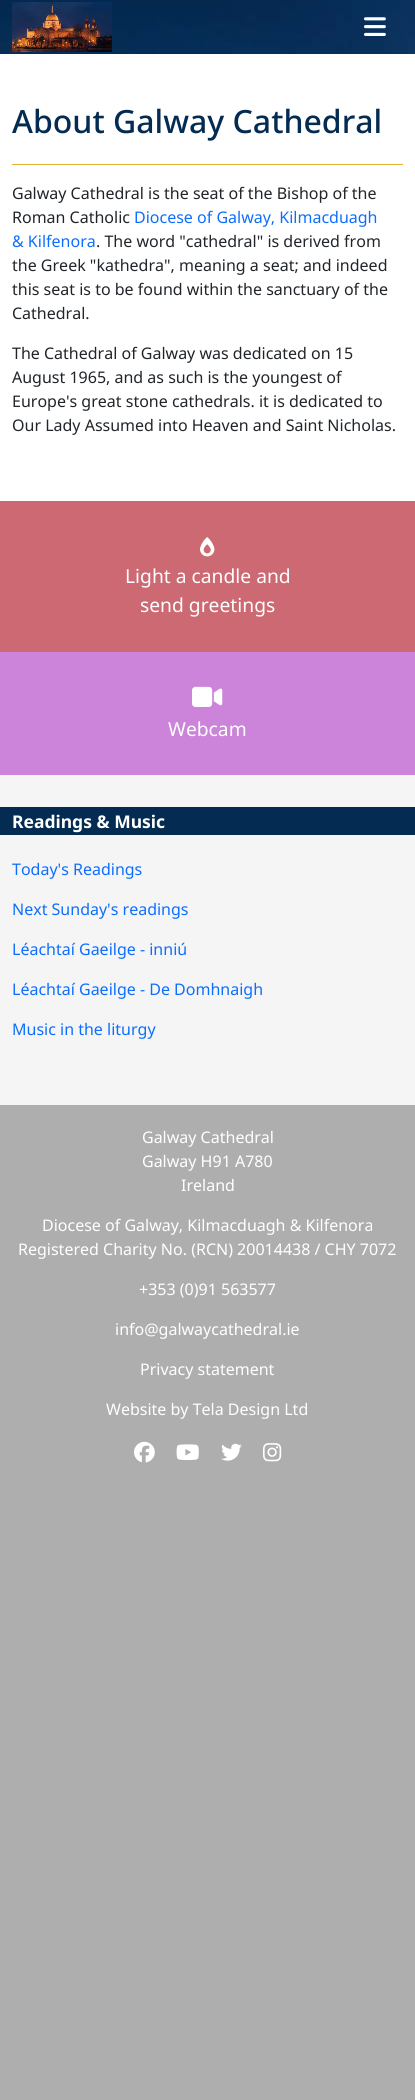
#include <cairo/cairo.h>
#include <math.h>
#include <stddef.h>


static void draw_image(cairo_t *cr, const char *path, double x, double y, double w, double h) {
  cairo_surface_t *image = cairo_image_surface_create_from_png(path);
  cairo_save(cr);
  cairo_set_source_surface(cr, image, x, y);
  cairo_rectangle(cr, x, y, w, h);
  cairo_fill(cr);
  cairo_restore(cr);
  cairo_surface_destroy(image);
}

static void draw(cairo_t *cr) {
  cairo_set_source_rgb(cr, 174 / 255.0, 174 / 255.0, 174 / 255.0);
  cairo_paint(cr);
  cairo_set_source_rgb(cr, 1, 1, 1);
  cairo_rectangle(cr, 0, 54, 415, 447);
  cairo_fill(cr);
  draw_image(cr, "images/1.png", 0, 0, 415, 54);
  draw_image(cr, "images/2.png", 12, 2, 100, 50);
  draw_image(cr, "images/3.png", 364, 17, 22, 19);
  cairo_set_source_rgb(cr, 226 / 255.0, 179 / 255.0, 56 / 255.0);
  cairo_rectangle(cr, 12, 164, 391, 1);
  cairo_fill(cr);
  cairo_set_source_rgb(cr, 245 / 255.0, 245 / 255.0, 245 / 255.0);
  cairo_rectangle(cr, 0, 775, 415, 330);
  cairo_fill(cr);
  cairo_set_source_rgb(cr, 204 / 255.0, 105 / 255.0, 115 / 255.0);
  cairo_rectangle(cr, 0, 501, 415, 151);
  cairo_fill(cr);
  draw_image(cr, "images/4.png", 200, 537, 15, 20);
  cairo_set_source_rgb(cr, 204 / 255.0, 131 / 255.0, 218 / 255.0);
  cairo_rectangle(cr, 0, 652, 415, 123);
  cairo_fill(cr);
  draw_image(cr, "images/5.png", 192, 686, 31, 21);
  cairo_set_source_rgb(cr, 4 / 255.0, 43 / 255.0, 82 / 255.0);
  cairo_rectangle(cr, 0, 807, 415, 28);
  cairo_fill(cr);
  draw_image(cr, "images/6.png", 134, 1441, 21, 22);
  draw_image(cr, "images/7.png", 176, 1444, 23, 16);
  draw_image(cr, "images/8.png", 221, 1443, 21, 18);
  draw_image(cr, "images/9.png", 263, 1443, 19, 19);
  cairo_select_font_face(cr, "Noto Sans Medium", CAIRO_FONT_SLANT_NORMAL, CAIRO_FONT_WEIGHT_NORMAL);
  cairo_set_font_size(cr, 32);
  cairo_move_to(cr, 12, 133);
  cairo_show_text(cr, "About Galway Cathedral");
  cairo_select_font_face(cr, "Noto Sans", CAIRO_FONT_SLANT_NORMAL, CAIRO_FONT_WEIGHT_NORMAL);
  cairo_set_font_size(cr, 16);
  cairo_set_source_rgb(cr, 33 / 255.0, 37 / 255.0, 41 / 255.0);
  cairo_move_to(cr, 12, 199);
  cairo_show_text(cr, "Galway Cathedral is the seat of the Bishop of the");
  cairo_move_to(cr, 12, 223);
  cairo_show_text(cr, "Roman Catholic");
  cairo_set_source_rgb(cr, 13 / 255.0, 110 / 255.0, 253 / 255.0);
  cairo_move_to(cr, 134, 223);
  cairo_show_text(cr, "Diocese of Galway, Kilmacduagh");
  cairo_move_to(cr, 12, 247);
  cairo_show_text(cr, "& Kilfenora");
  cairo_set_source_rgb(cr, 33 / 255.0, 37 / 255.0, 41 / 255.0);
  cairo_move_to(cr, 96, 247);
  cairo_show_text(cr, ". The word \"cathedral\" is derived from");
  cairo_move_to(cr, 12, 271);
  cairo_show_text(cr, "the Greek \"kathedra\", meaning a seat; and indeed");
  cairo_move_to(cr, 12, 295);
  cairo_show_text(cr, "this seat is to be found within the sanctuary of the");
  cairo_move_to(cr, 12, 319);
  cairo_show_text(cr, "Cathedral.");
  cairo_move_to(cr, 12, 359);
  cairo_show_text(cr, "The Cathedral of Galway was dedicated on 15");
  cairo_move_to(cr, 12, 383);
  cairo_show_text(cr, "August 1965, and as such is the youngest of");
  cairo_move_to(cr, 12, 407);
  cairo_show_text(cr, "Europe's great stone cathedrals. it is dedicated to");
  cairo_move_to(cr, 12, 431);
  cairo_show_text(cr, "Our Lady Assumed into Heaven and Saint Nicholas.");
  cairo_set_font_size(cr, 19.25);
  cairo_set_source_rgb(cr, 1, 1, 1);
  cairo_move_to(cr, 125, 583);
  cairo_show_text(cr, "Light a candle and");
  cairo_move_to(cr, 140, 612);
  cairo_show_text(cr, "send greetings");
  cairo_move_to(cr, 168, 736);
  cairo_show_text(cr, "Webcam");
  cairo_select_font_face(cr, "Noto Sans", CAIRO_FONT_SLANT_NORMAL, CAIRO_FONT_WEIGHT_BOLD);
  cairo_set_font_size(cr, 17.5);
  cairo_move_to(cr, 12, 828);
  cairo_show_text(cr, "Readings & Music");
  cairo_select_font_face(cr, "Noto Sans", CAIRO_FONT_SLANT_NORMAL, CAIRO_FONT_WEIGHT_NORMAL);
  cairo_set_font_size(cr, 16);
  cairo_set_source_rgb(cr, 13 / 255.0, 110 / 255.0, 253 / 255.0);
  cairo_move_to(cr, 12, 875);
  cairo_show_text(cr, "Today's Readings");
  cairo_move_to(cr, 12, 915);
  cairo_show_text(cr, "Next Sunday's readings");
  cairo_move_to(cr, 12, 955);
  cairo_show_text(cr, "Léachtaí Gaeilge - inniú");
  cairo_move_to(cr, 12, 995);
  cairo_show_text(cr, "Léachtaí Gaeilge - De Domhnaigh");
  cairo_move_to(cr, 12, 1035);
  cairo_show_text(cr, "Music in the liturgy");
  cairo_set_source_rgb(cr, 1, 1, 1);
  cairo_move_to(cr, 142, 1143);
  cairo_show_text(cr, "Galway Cathedral");
  cairo_move_to(cr, 142, 1167);
  cairo_show_text(cr, "Galway H91 A780");
  cairo_move_to(cr, 181, 1191);
  cairo_show_text(cr, "Ireland");
  cairo_move_to(cr, 42, 1231);
  cairo_show_text(cr, "Diocese of Galway, Kilmacduagh & Kilfenora");
  cairo_move_to(cr, 18, 1255);
  cairo_show_text(cr, "Registered Charity No. (RCN) 20014438 / CHY 7072");
  cairo_move_to(cr, 139, 1295);
  cairo_show_text(cr, "+353 (0)91 563577");
  cairo_move_to(cr, 115, 1335);
  cairo_show_text(cr, "info@galwaycathedral.ie");
  cairo_move_to(cr, 140, 1375);
  cairo_show_text(cr, "Privacy statement");
  cairo_move_to(cr, 106, 1415);
  cairo_show_text(cr, "Website by Tela Design Ltd");
}

int main(void) {
  cairo_surface_t *surface = cairo_image_surface_create(CAIRO_FORMAT_RGB24, 415, 2100);
  cairo_t *cr = cairo_create(surface);
  cairo_font_options_t *options = cairo_font_options_create();
  cairo_font_options_set_hint_metrics(options, CAIRO_HINT_METRICS_OFF);
  cairo_font_options_set_hint_style(options, CAIRO_HINT_STYLE_NONE);
  cairo_set_font_options(cr, options);
  cairo_set_miter_limit(cr, 4);
  draw(cr);
  cairo_surface_write_to_png(surface, "out.png");
  cairo_font_options_destroy(options);
  cairo_destroy(cr);
  cairo_surface_destroy(surface);
  return 0;
}
